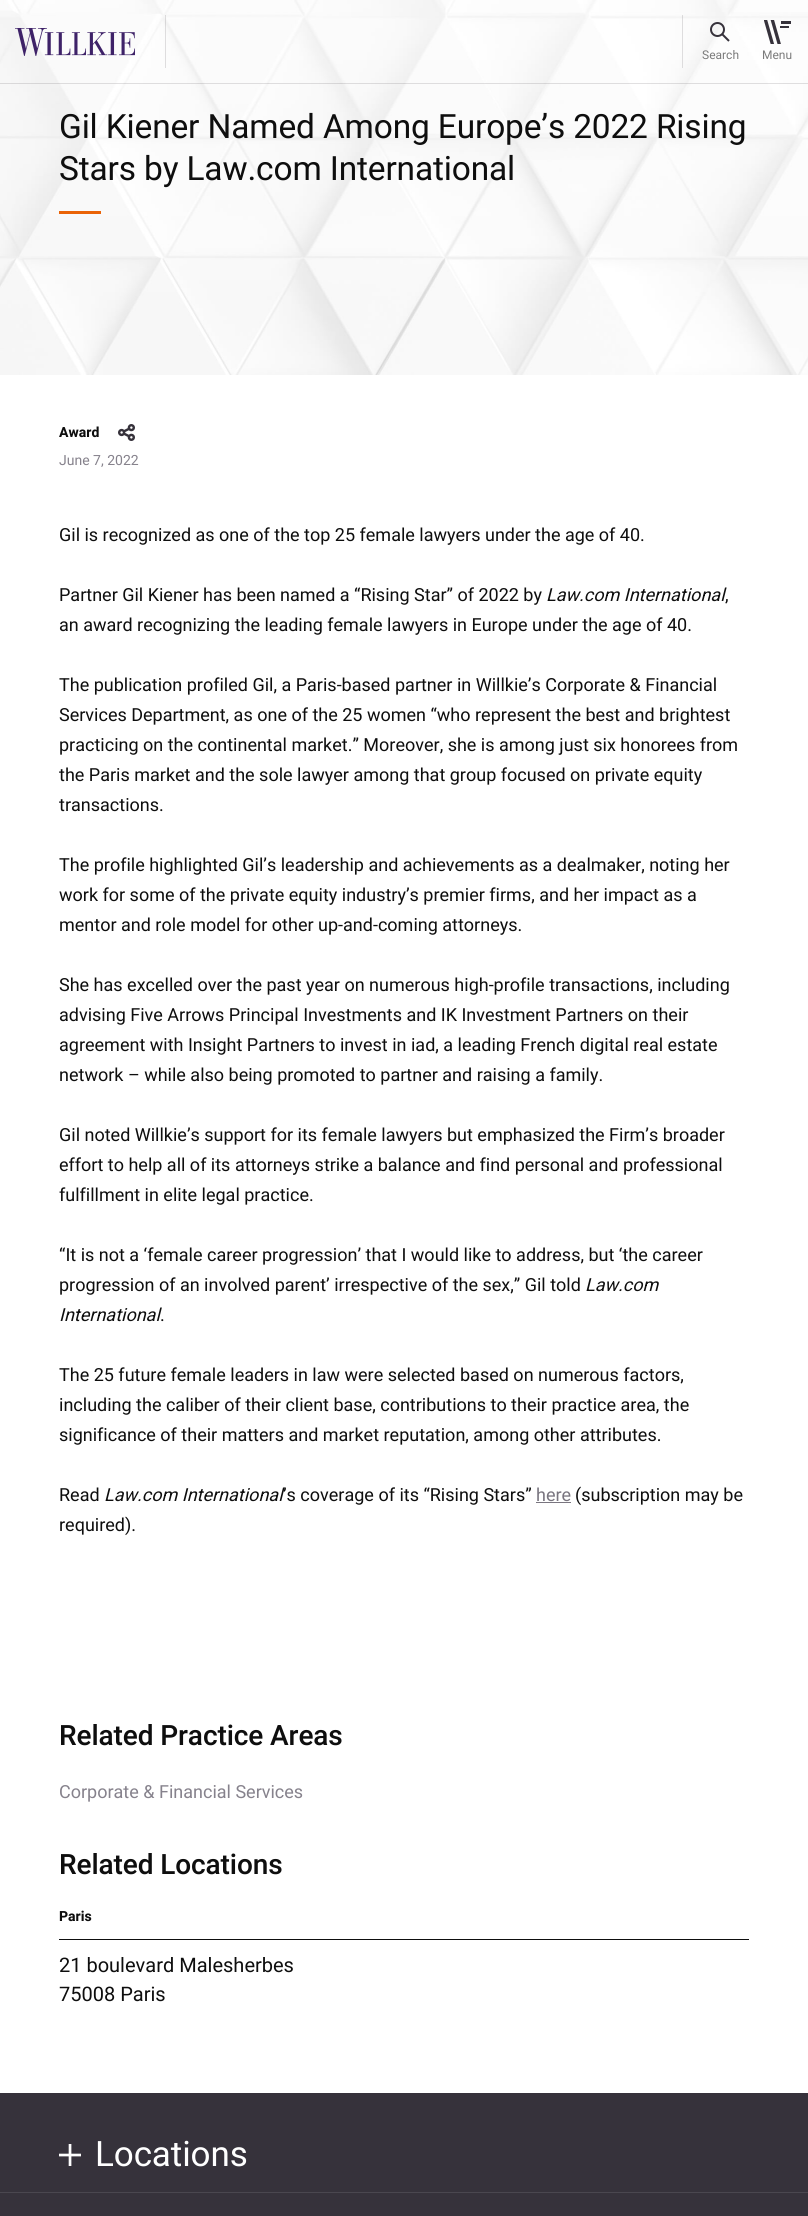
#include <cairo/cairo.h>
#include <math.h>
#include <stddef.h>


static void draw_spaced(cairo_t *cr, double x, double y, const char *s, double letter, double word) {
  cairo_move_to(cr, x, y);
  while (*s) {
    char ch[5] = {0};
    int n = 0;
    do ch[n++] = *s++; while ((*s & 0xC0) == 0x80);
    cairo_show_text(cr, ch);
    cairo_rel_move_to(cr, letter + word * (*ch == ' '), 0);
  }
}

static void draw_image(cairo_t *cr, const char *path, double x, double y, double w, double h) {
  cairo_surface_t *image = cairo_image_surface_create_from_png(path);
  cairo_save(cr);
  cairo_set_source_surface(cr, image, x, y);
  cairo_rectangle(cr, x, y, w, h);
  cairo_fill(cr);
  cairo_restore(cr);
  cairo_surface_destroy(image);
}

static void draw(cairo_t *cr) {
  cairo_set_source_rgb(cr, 1, 1, 1);
  cairo_paint(cr);
  draw_image(cr, "images/4.png", 0, 0, 808, 375);
  cairo_set_source_rgba(cr, 54 / 255.0, 50 / 255.0, 59 / 255.0, 0.15);
  cairo_rectangle(cr, 0, 83, 808, 1);
  cairo_fill(cr);
  cairo_rectangle(cr, 165, 15, 1, 53);
  cairo_fill(cr);
  draw_image(cr, "images/1.png", 15, 28, 120, 28);
  cairo_rectangle(cr, 682, 15, 1, 53);
  cairo_fill(cr);
  draw_image(cr, "images/2.png", 710, 22, 20, 20);
  draw_image(cr, "images/3.png", 764, 20, 27, 24);
  cairo_set_source_rgb(cr, 234 / 255.0, 99 / 255.0, 7 / 255.0);
  cairo_rectangle(cr, 59, 211, 42, 3);
  cairo_fill(cr);
  draw_image(cr, "images/5.png", 118, 424, 17, 17);
  cairo_set_source_rgb(cr, 121 / 255.0, 117 / 255.0, 127 / 255.0);
  cairo_rectangle(cr, 536, 1502, 35, 1);
  cairo_fill(cr);
  cairo_set_source_rgb(cr, 14 / 255.0, 14 / 255.0, 14 / 255.0);
  cairo_rectangle(cr, 59, 1939, 690, 1);
  cairo_fill(cr);
  cairo_set_source_rgb(cr, 54 / 255.0, 50 / 255.0, 59 / 255.0);
  cairo_rectangle(cr, 0, 2093, 808, 123);
  cairo_fill(cr);
  draw_image(cr, "images/6.png", 59, 2144, 22, 22);
  cairo_set_source_rgb(cr, 74 / 255.0, 71 / 255.0, 79 / 255.0);
  cairo_rectangle(cr, 0, 2192, 808, 1);
  cairo_fill(cr);
  cairo_select_font_face(cr, "Heebo", CAIRO_FONT_SLANT_NORMAL, CAIRO_FONT_WEIGHT_NORMAL);
  cairo_set_font_size(cr, 12);
  cairo_set_source_rgb(cr, 123 / 255.0, 123 / 255.0, 123 / 255.0);
  cairo_move_to(cr, 702, 59);
  cairo_show_text(cr, "Search");
  cairo_move_to(cr, 762, 59);
  cairo_show_text(cr, "Menu");
  cairo_set_font_size(cr, 33.45);
  cairo_set_source_rgb(cr, 14 / 255.0, 14 / 255.0, 14 / 255.0);
  draw_spaced(cr, 59, 138, "Gil Kiener Named Among Europe’s 2022 Rising", -0.15, 0);
  draw_spaced(cr, 59, 180, "Stars by Law.com International", -0.15, 0);
  cairo_select_font_face(cr, "Heebo", CAIRO_FONT_SLANT_NORMAL, CAIRO_FONT_WEIGHT_BOLD);
  cairo_set_font_size(cr, 14);
  cairo_move_to(cr, 59, 437);
  cairo_show_text(cr, "Award");
  cairo_select_font_face(cr, "Heebo", CAIRO_FONT_SLANT_NORMAL, CAIRO_FONT_WEIGHT_NORMAL);
  cairo_set_source_rgb(cr, 134 / 255.0, 130 / 255.0, 140 / 255.0);
  cairo_move_to(cr, 59, 465);
  cairo_show_text(cr, "June 7, 2022");
  cairo_set_font_size(cr, 18);
  cairo_set_source_rgb(cr, 14 / 255.0, 14 / 255.0, 14 / 255.0);
  cairo_move_to(cr, 59, 541);
  cairo_show_text(cr, "Gil is recognized as one of the top 25 female lawyers under the age of 40.");
  cairo_move_to(cr, 59, 601);
  cairo_show_text(cr, "Partner Gil Kiener has been named a “Rising Star” of 2022 by");
  cairo_select_font_face(cr, "Heebo", CAIRO_FONT_SLANT_ITALIC, CAIRO_FONT_WEIGHT_NORMAL);
  cairo_move_to(cr, 546, 601);
  cairo_show_text(cr, "Law.com International");
  cairo_select_font_face(cr, "Heebo", CAIRO_FONT_SLANT_NORMAL, CAIRO_FONT_WEIGHT_NORMAL);
  cairo_move_to(cr, 725, 601);
  cairo_show_text(cr, ",");
  cairo_move_to(cr, 59, 631);
  cairo_show_text(cr, "an award recognizing the leading female lawyers in Europe under the age of 40.");
  cairo_move_to(cr, 59, 691);
  cairo_show_text(cr, "The publication profiled Gil, a Paris-based partner in Willkie’s Corporate & Financial");
  cairo_move_to(cr, 59, 721);
  cairo_show_text(cr, "Services Department, as one of the 25 women “who represent the best and brightest");
  cairo_move_to(cr, 59, 751);
  cairo_show_text(cr, "practicing on the continental market.” Moreover, she is among just six honorees from");
  cairo_move_to(cr, 59, 781);
  cairo_show_text(cr, "the Paris market and the sole lawyer among that group focused on private equity");
  cairo_move_to(cr, 59, 811);
  cairo_show_text(cr, "transactions.");
  cairo_move_to(cr, 59, 871);
  cairo_show_text(cr, "The profile highlighted Gil’s leadership and achievements as a dealmaker, noting her");
  cairo_move_to(cr, 59, 901);
  cairo_show_text(cr, "work for some of the private equity industry’s premier firms, and her impact as a");
  cairo_move_to(cr, 59, 931);
  cairo_show_text(cr, "mentor and role model for other up-and-coming attorneys.");
  cairo_move_to(cr, 59, 991);
  cairo_show_text(cr, "She has excelled over the past year on numerous high-profile transactions, including");
  cairo_move_to(cr, 59, 1021);
  cairo_show_text(cr, "advising Five Arrows Principal Investments and IK Investment Partners on their");
  cairo_move_to(cr, 59, 1051);
  cairo_show_text(cr, "agreement with Insight Partners to invest in iad, a leading French digital real estate");
  cairo_move_to(cr, 59, 1081);
  cairo_show_text(cr, "network – while also being promoted to partner and raising a family.");
  cairo_move_to(cr, 59, 1141);
  cairo_show_text(cr, "Gil noted Willkie’s support for its female lawyers but emphasized the Firm’s broader");
  cairo_move_to(cr, 59, 1171);
  cairo_show_text(cr, "effort to help all of its attorneys strike a balance and find personal and professional");
  cairo_move_to(cr, 59, 1201);
  cairo_show_text(cr, "fulfillment in elite legal practice.");
  cairo_move_to(cr, 59, 1261);
  cairo_show_text(cr, "“It is not a ‘female career progression’ that I would like to address, but ‘the career");
  cairo_move_to(cr, 59, 1291);
  cairo_show_text(cr, "progression of an involved parent’ irrespective of the sex,” Gil told");
  cairo_select_font_face(cr, "Heebo", CAIRO_FONT_SLANT_ITALIC, CAIRO_FONT_WEIGHT_NORMAL);
  cairo_move_to(cr, 585, 1291);
  cairo_show_text(cr, "Law.com");
  cairo_move_to(cr, 59, 1321);
  cairo_show_text(cr, "International");
  cairo_select_font_face(cr, "Heebo", CAIRO_FONT_SLANT_NORMAL, CAIRO_FONT_WEIGHT_NORMAL);
  cairo_move_to(cr, 160, 1321);
  cairo_show_text(cr, ".");
  cairo_move_to(cr, 59, 1381);
  cairo_show_text(cr, "The 25 future female leaders in law were selected based on numerous factors,");
  cairo_move_to(cr, 59, 1411);
  cairo_show_text(cr, "including the caliber of their client base, contributions to their practice area, the");
  cairo_move_to(cr, 59, 1441);
  cairo_show_text(cr, "significance of their matters and market reputation, among other attributes.");
  cairo_move_to(cr, 59, 1501);
  cairo_show_text(cr, "Read");
  cairo_select_font_face(cr, "Heebo", CAIRO_FONT_SLANT_ITALIC, CAIRO_FONT_WEIGHT_NORMAL);
  cairo_move_to(cr, 104, 1501);
  cairo_show_text(cr, "Law.com International");
  cairo_select_font_face(cr, "Heebo", CAIRO_FONT_SLANT_NORMAL, CAIRO_FONT_WEIGHT_NORMAL);
  cairo_move_to(cr, 283, 1501);
  cairo_show_text(cr, "’s coverage of its “Rising Stars”");
  cairo_set_source_rgb(cr, 121 / 255.0, 117 / 255.0, 127 / 255.0);
  cairo_move_to(cr, 536, 1501);
  cairo_show_text(cr, "here");
  cairo_set_source_rgb(cr, 14 / 255.0, 14 / 255.0, 14 / 255.0);
  cairo_move_to(cr, 575, 1501);
  cairo_show_text(cr, "(subscription may be");
  cairo_move_to(cr, 59, 1531);
  cairo_show_text(cr, "required).");
  cairo_select_font_face(cr, "Heebo Medium", CAIRO_FONT_SLANT_NORMAL, CAIRO_FONT_WEIGHT_NORMAL);
  cairo_set_font_size(cr, 28);
  draw_spaced(cr, 59, 1745, "Related Practice Areas", -0.1, 0);
  cairo_select_font_face(cr, "Heebo", CAIRO_FONT_SLANT_NORMAL, CAIRO_FONT_WEIGHT_NORMAL);
  cairo_set_font_size(cr, 18);
  cairo_set_source_rgb(cr, 134 / 255.0, 130 / 255.0, 140 / 255.0);
  cairo_move_to(cr, 59, 1798);
  cairo_show_text(cr, "Corporate & Financial Services");
  cairo_select_font_face(cr, "Heebo Medium", CAIRO_FONT_SLANT_NORMAL, CAIRO_FONT_WEIGHT_NORMAL);
  cairo_set_font_size(cr, 28);
  cairo_set_source_rgb(cr, 14 / 255.0, 14 / 255.0, 14 / 255.0);
  draw_spaced(cr, 59, 1874, "Related Locations", -0.1, 0);
  cairo_select_font_face(cr, "Heebo", CAIRO_FONT_SLANT_NORMAL, CAIRO_FONT_WEIGHT_BOLD);
  cairo_set_font_size(cr, 14);
  cairo_move_to(cr, 59, 1921);
  cairo_show_text(cr, "Paris");
  cairo_select_font_face(cr, "Heebo", CAIRO_FONT_SLANT_NORMAL, CAIRO_FONT_WEIGHT_NORMAL);
  cairo_set_font_size(cr, 20);
  cairo_move_to(cr, 59, 1972);
  cairo_show_text(cr, "21 boulevard Malesherbes");
  cairo_move_to(cr, 59, 2001);
  cairo_show_text(cr, "75008 Paris");
  cairo_set_font_size(cr, 35);
  cairo_set_source_rgb(cr, 1, 1, 1);
  draw_spaced(cr, 95, 2166, "Locations", -0.1, 0);
}

int main(void) {
  cairo_surface_t *surface = cairo_image_surface_create(CAIRO_FORMAT_RGB24, 808, 2216);
  cairo_t *cr = cairo_create(surface);
  cairo_font_options_t *options = cairo_font_options_create();
  cairo_font_options_set_hint_metrics(options, CAIRO_HINT_METRICS_OFF);
  cairo_font_options_set_hint_style(options, CAIRO_HINT_STYLE_NONE);
  cairo_set_font_options(cr, options);
  cairo_set_miter_limit(cr, 4);
  draw(cr);
  cairo_surface_write_to_png(surface, "out.png");
  cairo_font_options_destroy(options);
  cairo_destroy(cr);
  cairo_surface_destroy(surface);
  return 0;
}
